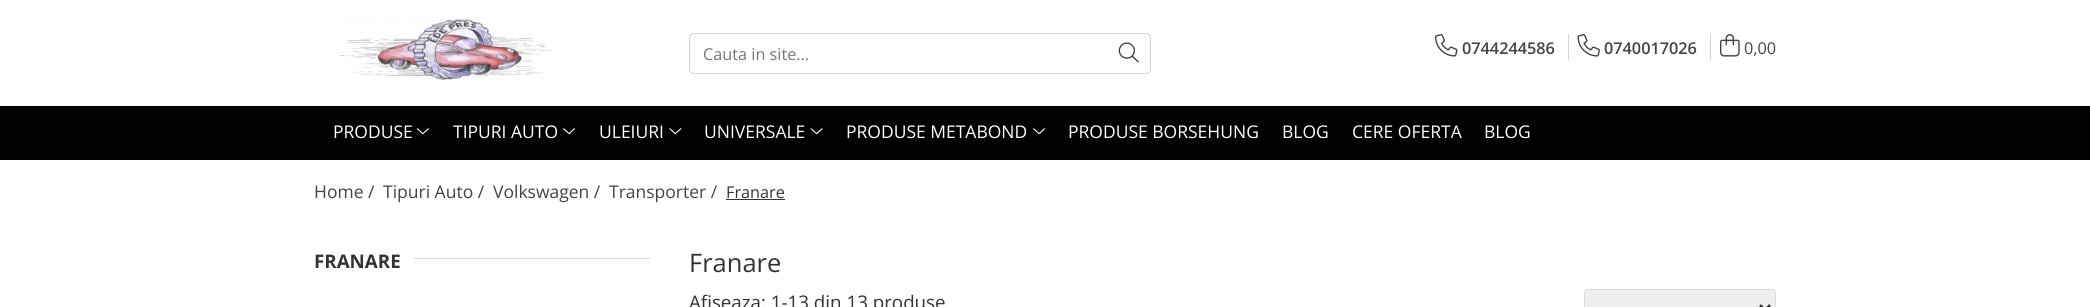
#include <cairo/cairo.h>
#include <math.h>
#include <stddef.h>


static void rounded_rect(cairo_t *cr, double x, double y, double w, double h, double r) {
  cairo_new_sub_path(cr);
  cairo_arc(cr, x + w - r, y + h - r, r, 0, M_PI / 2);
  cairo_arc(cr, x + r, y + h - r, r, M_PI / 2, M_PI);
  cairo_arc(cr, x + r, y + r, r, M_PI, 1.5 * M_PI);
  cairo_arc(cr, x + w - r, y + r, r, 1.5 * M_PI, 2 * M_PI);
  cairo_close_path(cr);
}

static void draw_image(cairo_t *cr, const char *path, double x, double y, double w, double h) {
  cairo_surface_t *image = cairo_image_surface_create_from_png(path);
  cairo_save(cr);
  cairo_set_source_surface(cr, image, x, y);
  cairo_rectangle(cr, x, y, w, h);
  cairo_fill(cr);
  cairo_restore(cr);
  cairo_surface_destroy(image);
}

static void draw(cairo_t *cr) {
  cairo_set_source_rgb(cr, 1, 1, 1);
  cairo_paint(cr);
  draw_image(cr, "images/1.png", 339, 19, 212, 63);
  rounded_rect(cr, 689.5, 33.5, 461, 40, 4.5);
  cairo_set_source_rgb(cr, 213 / 255.0, 213 / 255.0, 213 / 255.0);
  cairo_set_line_width(cr, 1);
  cairo_stroke(cr);
  draw_image(cr, "images/2.png", 1118, 42, 21, 21);
  draw_image(cr, "images/3.png", 1435, 34, 23, 23);
  cairo_rectangle(cr, 1568, 34, 1, 26);
  cairo_fill(cr);
  draw_image(cr, "images/4.png", 1577, 34, 23, 23);
  cairo_rectangle(cr, 1710, 34, 1, 26);
  cairo_fill(cr);
  draw_image(cr, "images/5.png", 1720, 34, 20, 23);
  cairo_set_source_rgb(cr, 0, 0, 0);
  cairo_rectangle(cr, 0, 106, 2090, 54);
  cairo_fill(cr);
  draw_image(cr, "images/6.png", 416, 128, 13, 7);
  draw_image(cr, "images/7.png", 563, 128, 12, 7);
  draw_image(cr, "images/8.png", 669, 128, 13, 7);
  draw_image(cr, "images/9.png", 810, 128, 13, 7);
  draw_image(cr, "images/7.png", 1033, 128, 12, 7);
  cairo_set_source_rgb(cr, 51 / 255.0, 51 / 255.0, 51 / 255.0);
  cairo_rectangle(cr, 726, 199, 59, 1);
  cairo_fill(cr);
  cairo_set_source_rgb(cr, 219 / 255.0, 219 / 255.0, 219 / 255.0);
  cairo_rectangle(cr, 413, 258, 238, 1);
  cairo_fill(cr);
  cairo_set_source_rgb(cr, 239 / 255.0, 239 / 255.0, 239 / 255.0);
  rounded_rect(cr, 1584.5, 289.5, 191, 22, 3.5);
  cairo_fill_preserve(cr);
  cairo_set_source_rgb(cr, 219 / 255.0, 219 / 255.0, 219 / 255.0);
  cairo_stroke(cr);
  cairo_new_path(cr);
  cairo_move_to(cr, 1760, 305);
  cairo_line_to(cr, 1765, 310);
  cairo_line_to(cr, 1770, 305);
  cairo_set_source_rgb(cr, 51 / 255.0, 51 / 255.0, 51 / 255.0);
  cairo_set_line_width(cr, 2.5);
  cairo_stroke(cr);
  cairo_select_font_face(cr, "Open Sans", CAIRO_FONT_SLANT_NORMAL, CAIRO_FONT_WEIGHT_NORMAL);
  cairo_set_font_size(cr, 16.25);
  cairo_set_source_rgb(cr, 117 / 255.0, 117 / 255.0, 117 / 255.0);
  cairo_move_to(cr, 703, 60);
  cairo_show_text(cr, "Cauta in site...");
  cairo_select_font_face(cr, "Open Sans SemiBold", CAIRO_FONT_SLANT_NORMAL, CAIRO_FONT_WEIGHT_NORMAL);
  cairo_set_source_rgb(cr, 68 / 255.0, 68 / 255.0, 68 / 255.0);
  cairo_move_to(cr, 1462, 54);
  cairo_show_text(cr, "0744244586");
  cairo_move_to(cr, 1604, 54);
  cairo_show_text(cr, "0740017026");
  cairo_select_font_face(cr, "Open Sans", CAIRO_FONT_SLANT_NORMAL, CAIRO_FONT_WEIGHT_NORMAL);
  cairo_move_to(cr, 1744, 54);
  cairo_show_text(cr, "0,00");
  cairo_set_font_size(cr, 17.5);
  cairo_set_source_rgb(cr, 1, 1, 1);
  cairo_move_to(cr, 333, 138);
  cairo_show_text(cr, "PRODUSE");
  cairo_move_to(cr, 453, 138);
  cairo_show_text(cr, "TIPURI AUTO");
  cairo_move_to(cr, 599, 138);
  cairo_show_text(cr, "ULEIURI");
  cairo_move_to(cr, 704, 138);
  cairo_show_text(cr, "UNIVERSALE");
  cairo_move_to(cr, 846, 138);
  cairo_show_text(cr, "PRODUSE METABOND");
  cairo_move_to(cr, 1068, 138);
  cairo_show_text(cr, "PRODUSE BORSEHUNG");
  cairo_move_to(cr, 1282, 138);
  cairo_show_text(cr, "BLOG");
  cairo_move_to(cr, 1352, 138);
  cairo_show_text(cr, "CERE OFERTA");
  cairo_move_to(cr, 1484, 138);
  cairo_show_text(cr, "BLOG");
  cairo_set_source_rgb(cr, 68 / 255.0, 68 / 255.0, 68 / 255.0);
  cairo_move_to(cr, 314, 198);
  cairo_show_text(cr, "Home /");
  cairo_move_to(cr, 383, 198);
  cairo_show_text(cr, "Tipuri Auto /");
  cairo_move_to(cr, 493, 198);
  cairo_show_text(cr, "Volkswagen /");
  cairo_move_to(cr, 609, 198);
  cairo_show_text(cr, "Transporter /");
  cairo_set_font_size(cr, 16.25);
  cairo_set_source_rgb(cr, 51 / 255.0, 51 / 255.0, 51 / 255.0);
  cairo_move_to(cr, 726, 198);
  cairo_show_text(cr, "Franare");
  cairo_select_font_face(cr, "Open Sans", CAIRO_FONT_SLANT_NORMAL, CAIRO_FONT_WEIGHT_BOLD);
  cairo_set_font_size(cr, 18.75);
  cairo_move_to(cr, 314, 268);
  cairo_show_text(cr, "FRANARE");
  cairo_select_font_face(cr, "Open Sans", CAIRO_FONT_SLANT_NORMAL, CAIRO_FONT_WEIGHT_NORMAL);
  cairo_set_font_size(cr, 25.5);
  cairo_move_to(cr, 689, 272);
  cairo_show_text(cr, "Franare");
  cairo_set_font_size(cr, 18.75);
  cairo_move_to(cr, 689, 309);
  cairo_show_text(cr, "Afiseaza: 1-13 din 13 produse");
}

int main(void) {
  cairo_surface_t *surface = cairo_image_surface_create(CAIRO_FORMAT_RGB24, 2090, 307);
  cairo_t *cr = cairo_create(surface);
  cairo_font_options_t *options = cairo_font_options_create();
  cairo_font_options_set_hint_metrics(options, CAIRO_HINT_METRICS_OFF);
  cairo_font_options_set_hint_style(options, CAIRO_HINT_STYLE_NONE);
  cairo_set_font_options(cr, options);
  cairo_set_miter_limit(cr, 4);
  draw(cr);
  cairo_surface_write_to_png(surface, "out.png");
  cairo_font_options_destroy(options);
  cairo_destroy(cr);
  cairo_surface_destroy(surface);
  return 0;
}
